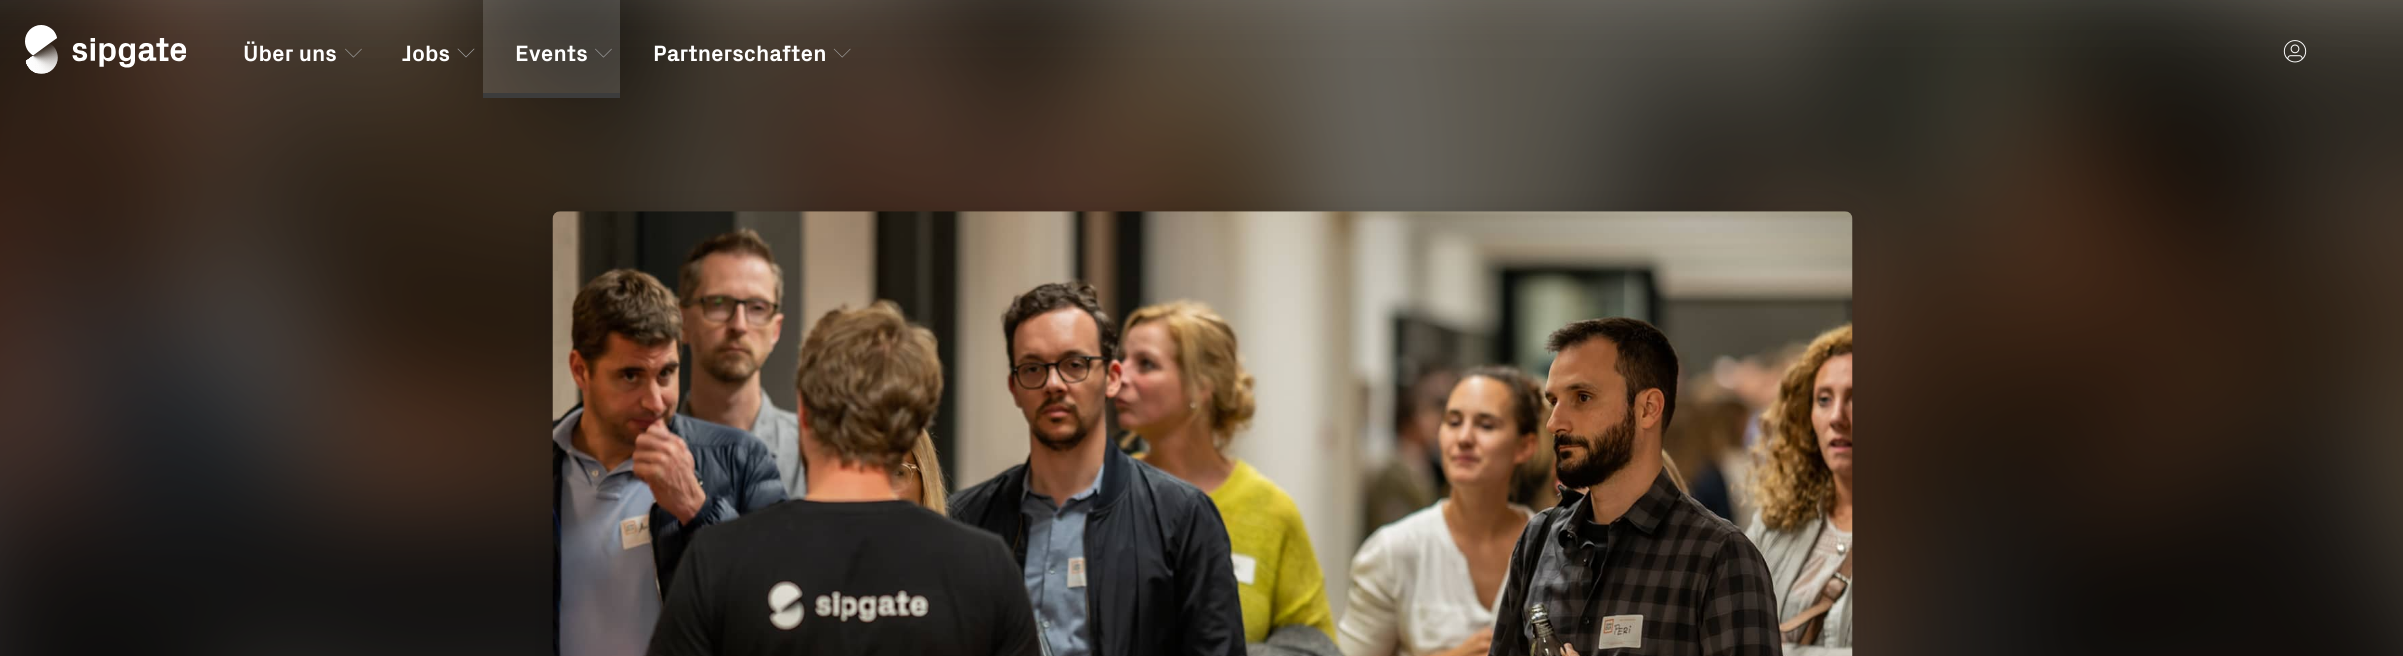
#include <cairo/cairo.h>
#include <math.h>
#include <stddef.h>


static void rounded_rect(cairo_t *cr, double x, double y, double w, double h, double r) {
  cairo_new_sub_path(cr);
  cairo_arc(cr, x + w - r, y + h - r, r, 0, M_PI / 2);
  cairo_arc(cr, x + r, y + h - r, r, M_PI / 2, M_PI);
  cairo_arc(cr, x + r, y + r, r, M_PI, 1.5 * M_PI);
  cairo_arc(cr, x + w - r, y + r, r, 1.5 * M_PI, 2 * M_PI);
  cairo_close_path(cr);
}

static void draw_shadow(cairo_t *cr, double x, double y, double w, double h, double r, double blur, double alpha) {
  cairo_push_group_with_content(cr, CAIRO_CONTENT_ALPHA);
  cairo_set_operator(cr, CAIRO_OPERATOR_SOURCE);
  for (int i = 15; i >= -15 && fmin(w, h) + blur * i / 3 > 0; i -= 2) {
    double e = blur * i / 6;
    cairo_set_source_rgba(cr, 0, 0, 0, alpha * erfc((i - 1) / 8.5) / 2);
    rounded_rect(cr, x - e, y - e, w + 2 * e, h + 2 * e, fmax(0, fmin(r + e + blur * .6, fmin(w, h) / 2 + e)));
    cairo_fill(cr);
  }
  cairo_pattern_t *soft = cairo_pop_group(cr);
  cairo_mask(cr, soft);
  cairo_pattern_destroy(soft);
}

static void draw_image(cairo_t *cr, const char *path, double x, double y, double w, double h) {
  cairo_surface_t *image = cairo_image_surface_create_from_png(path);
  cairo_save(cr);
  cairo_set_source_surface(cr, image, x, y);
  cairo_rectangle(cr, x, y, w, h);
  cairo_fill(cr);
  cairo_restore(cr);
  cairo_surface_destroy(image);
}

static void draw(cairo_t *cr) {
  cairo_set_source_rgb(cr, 1, 1, 1);
  cairo_paint(cr);
  draw_image(cr, "images/1.png", 0, 0, 2403, 656);
  cairo_set_source_rgb(cr, 0, 0, 0);
  draw_shadow(cr, 553, 215, 1300, 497, 8, 16, 0.15);
  draw_image(cr, "images/2.png", 552, 211, 1301, 445);
  draw_image(cr, "images/3.png", 25, 25, 161, 49);
  draw_image(cr, "images/4.png", 345, 48, 17, 10);
  cairo_set_source_rgb(cr, 161 / 255.0, 161 / 255.0, 161 / 255.0);
  cairo_new_path(cr);
  cairo_move_to(cr, 466, 56.5);
  cairo_line_to(cr, 458, 48.5);
  cairo_line_to(cr, 457.5, 49);
  cairo_line_to(cr, 466, 57.5);
  cairo_line_to(cr, 474.5, 49);
  cairo_line_to(cr, 474, 48.5);
  cairo_close_path(cr);
  cairo_fill(cr);
  cairo_set_source_rgba(cr, 1, 1, 1, 0.15);
  cairo_rectangle(cr, 483, 0, 137, 93);
  cairo_fill(cr);
  cairo_set_source_rgb(cr, 60 / 255.0, 60 / 255.0, 60 / 255.0);
  cairo_rectangle(cr, 483, 93, 137, 5);
  cairo_fill(cr);
  draw_image(cr, "images/5.png", 595, 48, 17, 10);
  draw_image(cr, "images/6.png", 833, 48, 18, 10);
  draw_image(cr, "images/7.png", 2283, 40, 24, 23);
  cairo_select_font_face(cr, "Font", CAIRO_FONT_SLANT_NORMAL, CAIRO_FONT_WEIGHT_BOLD);
  cairo_set_font_size(cr, 22.5);
  cairo_set_source_rgb(cr, 1, 1, 1);
  cairo_move_to(cr, 243, 61);
  cairo_show_text(cr, "Über uns");
  cairo_move_to(cr, 402, 61);
  cairo_show_text(cr, "Jobs");
  cairo_move_to(cr, 515, 61);
  cairo_show_text(cr, "Events");
  cairo_move_to(cr, 653, 61);
  cairo_show_text(cr, "Partnerschaften");
}

int main(void) {
  cairo_surface_t *surface = cairo_image_surface_create(CAIRO_FORMAT_RGB24, 2403, 656);
  cairo_t *cr = cairo_create(surface);
  cairo_font_options_t *options = cairo_font_options_create();
  cairo_font_options_set_hint_metrics(options, CAIRO_HINT_METRICS_OFF);
  cairo_font_options_set_hint_style(options, CAIRO_HINT_STYLE_NONE);
  cairo_set_font_options(cr, options);
  cairo_set_miter_limit(cr, 4);
  draw(cr);
  cairo_surface_write_to_png(surface, "out.png");
  cairo_font_options_destroy(options);
  cairo_destroy(cr);
  cairo_surface_destroy(surface);
  return 0;
}
